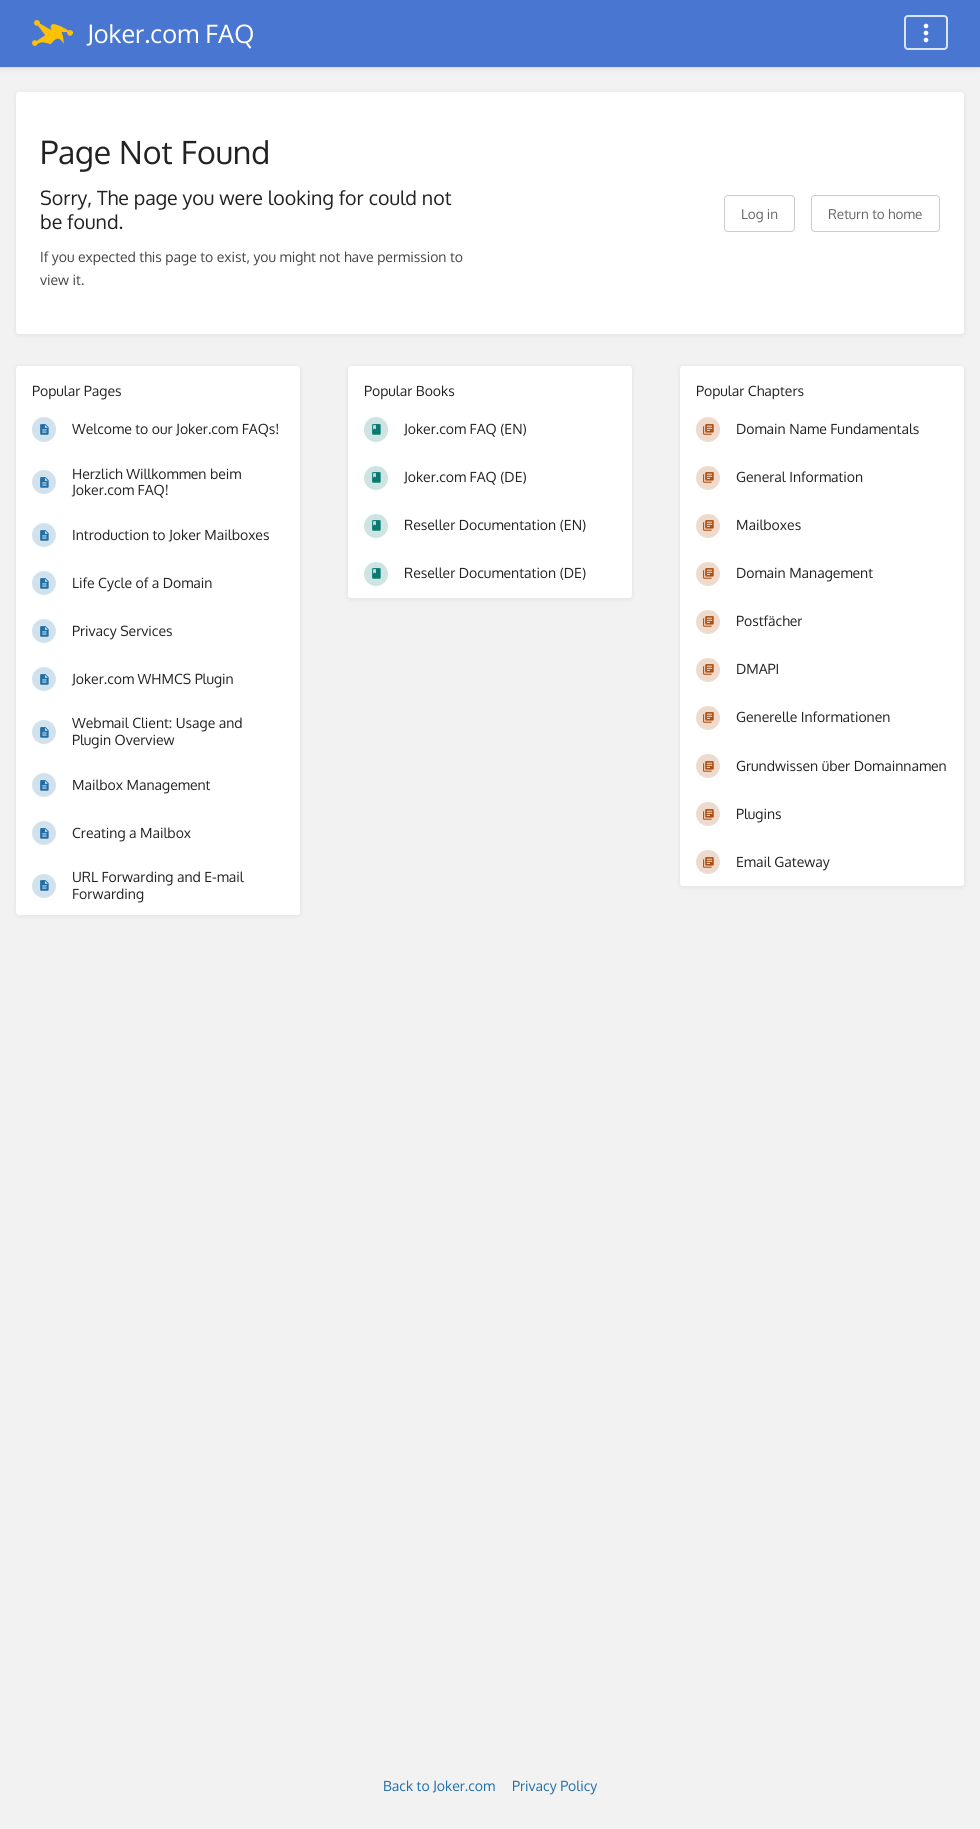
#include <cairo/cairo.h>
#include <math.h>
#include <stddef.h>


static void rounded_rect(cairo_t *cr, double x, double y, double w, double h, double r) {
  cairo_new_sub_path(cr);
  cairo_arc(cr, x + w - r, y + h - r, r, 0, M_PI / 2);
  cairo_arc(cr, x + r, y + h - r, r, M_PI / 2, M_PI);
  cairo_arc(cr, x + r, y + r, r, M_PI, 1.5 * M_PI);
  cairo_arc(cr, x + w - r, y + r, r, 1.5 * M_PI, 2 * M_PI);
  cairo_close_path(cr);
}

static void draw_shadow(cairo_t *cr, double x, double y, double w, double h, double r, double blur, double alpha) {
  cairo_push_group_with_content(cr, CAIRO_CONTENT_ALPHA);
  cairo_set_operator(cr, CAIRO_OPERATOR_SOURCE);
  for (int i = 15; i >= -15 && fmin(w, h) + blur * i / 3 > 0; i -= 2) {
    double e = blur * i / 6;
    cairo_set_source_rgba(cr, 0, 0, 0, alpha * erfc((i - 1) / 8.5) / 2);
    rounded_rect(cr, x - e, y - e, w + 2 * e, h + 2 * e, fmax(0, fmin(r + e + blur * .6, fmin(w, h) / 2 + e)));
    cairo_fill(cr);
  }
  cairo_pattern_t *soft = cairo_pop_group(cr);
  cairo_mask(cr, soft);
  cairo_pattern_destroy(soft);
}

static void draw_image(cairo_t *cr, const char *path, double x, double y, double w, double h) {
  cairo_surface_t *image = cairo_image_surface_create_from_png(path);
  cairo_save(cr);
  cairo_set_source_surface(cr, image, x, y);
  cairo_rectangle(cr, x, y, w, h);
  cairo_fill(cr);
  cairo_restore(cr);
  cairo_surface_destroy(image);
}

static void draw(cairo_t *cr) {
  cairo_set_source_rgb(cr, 242 / 255.0, 242 / 255.0, 242 / 255.0);
  cairo_paint(cr);
  cairo_set_source_rgb(cr, 0, 0, 0);
  draw_shadow(cr, 1, 2, 978, 66, 0, 3, 0.1);
  cairo_set_source_rgb(cr, 73 / 255.0, 118 / 255.0, 209 / 255.0);
  cairo_rectangle(cr, 0, 0, 980, 67);
  cairo_fill(cr);
  cairo_set_source_rgb(cr, 221 / 255.0, 221 / 255.0, 221 / 255.0);
  cairo_rectangle(cr, 0, 67, 980, 1);
  cairo_fill(cr);
  draw_image(cr, "images/1.png", 32, 20, 42, 27);
  rounded_rect(cr, 905, 16, 42, 33, 3);
  cairo_set_source_rgb(cr, 219 / 255.0, 228 / 255.0, 246 / 255.0);
  cairo_stroke(cr);
  draw_image(cr, "images/2.png", 923, 23, 6, 20);
  cairo_set_source_rgb(cr, 0, 0, 0);
  draw_shadow(cr, 17, 94, 946, 240, 2, 3, 0.1);
  cairo_set_source_rgb(cr, 1, 1, 1);
  rounded_rect(cr, 16, 92, 948, 242, 3);
  cairo_fill(cr);
  rounded_rect(cr, 724.5, 195.5, 70, 36, 3.5);
  cairo_set_source_rgb(cr, 204 / 255.0, 204 / 255.0, 204 / 255.0);
  cairo_set_line_width(cr, 1);
  cairo_stroke(cr);
  rounded_rect(cr, 811.5, 195.5, 128, 36, 3.5);
  cairo_stroke(cr);
  cairo_set_source_rgb(cr, 0, 0, 0);
  draw_shadow(cr, 17, 368, 282, 547, 2, 3, 0.1);
  cairo_set_source_rgb(cr, 1, 1, 1);
  rounded_rect(cr, 16, 366, 284, 549, 3);
  cairo_fill(cr);
  draw_image(cr, "images/3.png", 40, 424, 9, 11);
  cairo_set_source_rgba(cr, 32 / 255.0, 110 / 255.0, 167 / 255.0, 0.2);
  rounded_rect(cr, 32, 417, 24, 25, 12);
  cairo_fill(cr);
  draw_image(cr, "images/3.png", 40, 477, 9, 11);
  cairo_arc(cr, 44, 482, 12, 0, 2 * M_PI);
  cairo_fill(cr);
  draw_image(cr, "images/3.png", 40, 530, 9, 11);
  cairo_arc(cr, 44, 535, 12, 0, 2 * M_PI);
  cairo_fill(cr);
  draw_image(cr, "images/3.png", 40, 578, 9, 11);
  cairo_arc(cr, 44, 583, 12, 0, 2 * M_PI);
  cairo_fill(cr);
  draw_image(cr, "images/3.png", 40, 626, 9, 11);
  cairo_arc(cr, 44, 631, 12, 0, 2 * M_PI);
  cairo_fill(cr);
  draw_image(cr, "images/3.png", 40, 674, 9, 11);
  cairo_arc(cr, 44, 679, 12, 0, 2 * M_PI);
  cairo_fill(cr);
  draw_image(cr, "images/3.png", 40, 727, 9, 11);
  cairo_arc(cr, 44, 732, 12, 0, 2 * M_PI);
  cairo_fill(cr);
  draw_image(cr, "images/3.png", 40, 780, 9, 11);
  cairo_arc(cr, 44, 785, 12, 0, 2 * M_PI);
  cairo_fill(cr);
  draw_image(cr, "images/3.png", 40, 828, 9, 11);
  cairo_arc(cr, 44, 833, 12, 0, 2 * M_PI);
  cairo_fill(cr);
  draw_image(cr, "images/3.png", 40, 880, 9, 11);
  cairo_arc(cr, 44, 886, 12, 0, 2 * M_PI);
  cairo_fill(cr);
  cairo_set_source_rgb(cr, 0, 0, 0);
  draw_shadow(cr, 349, 368, 282, 230, 2, 3, 0.1);
  cairo_set_source_rgb(cr, 1, 1, 1);
  rounded_rect(cr, 348, 366, 284, 232, 3);
  cairo_fill(cr);
  draw_image(cr, "images/4.png", 372, 424, 9, 11);
  cairo_set_source_rgba(cr, 7 / 255.0, 123 / 255.0, 112 / 255.0, 0.2);
  rounded_rect(cr, 364, 417, 24, 25, 12);
  cairo_fill(cr);
  draw_image(cr, "images/4.png", 372, 472, 9, 11);
  cairo_arc(cr, 376, 478, 12, 0, 2 * M_PI);
  cairo_fill(cr);
  draw_image(cr, "images/4.png", 372, 520, 9, 11);
  cairo_arc(cr, 376, 526, 12, 0, 2 * M_PI);
  cairo_fill(cr);
  draw_image(cr, "images/4.png", 372, 568, 9, 11);
  cairo_arc(cr, 376, 574, 12, 0, 2 * M_PI);
  cairo_fill(cr);
  cairo_set_source_rgb(cr, 0, 0, 0);
  draw_shadow(cr, 681, 368, 282, 518, 2, 3, 0.1);
  cairo_set_source_rgb(cr, 1, 1, 1);
  rounded_rect(cr, 680, 366, 284, 520, 3);
  cairo_fill(cr);
  draw_image(cr, "images/5.png", 703, 424, 11, 11);
  cairo_set_source_rgba(cr, 175 / 255.0, 77 / 255.0, 13 / 255.0, 0.2);
  rounded_rect(cr, 696, 417, 24, 25, 12);
  cairo_fill(cr);
  draw_image(cr, "images/5.png", 703, 472, 11, 11);
  cairo_arc(cr, 708, 478, 12, 0, 2 * M_PI);
  cairo_fill(cr);
  draw_image(cr, "images/5.png", 703, 520, 11, 11);
  cairo_arc(cr, 708, 526, 12, 0, 2 * M_PI);
  cairo_fill(cr);
  draw_image(cr, "images/5.png", 703, 568, 11, 11);
  cairo_arc(cr, 708, 574, 12, 0, 2 * M_PI);
  cairo_fill(cr);
  draw_image(cr, "images/5.png", 703, 616, 11, 11);
  cairo_arc(cr, 708, 622, 12, 0, 2 * M_PI);
  cairo_fill(cr);
  draw_image(cr, "images/5.png", 703, 664, 11, 11);
  cairo_arc(cr, 708, 670, 12, 0, 2 * M_PI);
  cairo_fill(cr);
  draw_image(cr, "images/5.png", 703, 712, 11, 11);
  cairo_arc(cr, 708, 718, 12, 0, 2 * M_PI);
  cairo_fill(cr);
  draw_image(cr, "images/5.png", 703, 761, 11, 11);
  cairo_arc(cr, 708, 766, 12, 0, 2 * M_PI);
  cairo_fill(cr);
  draw_image(cr, "images/5.png", 703, 809, 11, 11);
  cairo_arc(cr, 708, 814, 12, 0, 2 * M_PI);
  cairo_fill(cr);
  draw_image(cr, "images/5.png", 703, 857, 11, 11);
  cairo_arc(cr, 708, 862, 12, 0, 2 * M_PI);
  cairo_fill(cr);
  cairo_select_font_face(cr, "Oxygen", CAIRO_FONT_SLANT_NORMAL, CAIRO_FONT_WEIGHT_NORMAL);
  cairo_set_font_size(cr, 25.25);
  cairo_set_source_rgb(cr, 1, 1, 1);
  cairo_move_to(cr, 87, 43);
  cairo_show_text(cr, "Joker.com FAQ");
  cairo_set_font_size(cr, 32);
  cairo_set_source_rgb(cr, 34 / 255.0, 34 / 255.0, 34 / 255.0);
  cairo_move_to(cr, 40, 164);
  cairo_show_text(cr, "Page Not Found");
  cairo_set_font_size(cr, 19.6);
  cairo_move_to(cr, 40, 205);
  cairo_show_text(cr, "Sorry, The page you were looking for could not");
  cairo_move_to(cr, 40, 229);
  cairo_show_text(cr, "be found.");
  cairo_set_font_size(cr, 14);
  cairo_set_source_rgb(cr, 68 / 255.0, 68 / 255.0, 68 / 255.0);
  cairo_move_to(cr, 40, 262);
  cairo_show_text(cr, "If you expected this page to exist, you might not have permission to");
  cairo_move_to(cr, 40, 285);
  cairo_show_text(cr, "view it.");
  cairo_set_font_size(cr, 13.5);
  cairo_set_source_rgb(cr, 102 / 255.0, 102 / 255.0, 102 / 255.0);
  cairo_move_to(cr, 741, 219);
  cairo_show_text(cr, "Log in");
  cairo_move_to(cr, 828, 219);
  cairo_show_text(cr, "Return to home");
  cairo_set_font_size(cr, 14);
  cairo_set_source_rgb(cr, 34 / 255.0, 34 / 255.0, 34 / 255.0);
  cairo_move_to(cr, 32, 396);
  cairo_show_text(cr, "Popular Pages");
  cairo_move_to(cr, 72, 434);
  cairo_show_text(cr, "Welcome to our Joker.com FAQs!");
  cairo_move_to(cr, 72, 479);
  cairo_show_text(cr, "Herzlich Willkommen beim");
  cairo_move_to(cr, 72, 495);
  cairo_show_text(cr, "Joker.com FAQ!");
  cairo_move_to(cr, 72, 540);
  cairo_show_text(cr, "Introduction to Joker Mailboxes");
  cairo_move_to(cr, 72, 588);
  cairo_show_text(cr, "Life Cycle of a Domain");
  cairo_move_to(cr, 72, 636);
  cairo_show_text(cr, "Privacy Services");
  cairo_move_to(cr, 72, 684);
  cairo_show_text(cr, "Joker.com WHMCS Plugin");
  cairo_move_to(cr, 72, 728);
  cairo_show_text(cr, "Webmail Client: Usage and");
  cairo_move_to(cr, 72, 745);
  cairo_show_text(cr, "Plugin Overview");
  cairo_move_to(cr, 72, 790);
  cairo_show_text(cr, "Mailbox Management");
  cairo_move_to(cr, 72, 838);
  cairo_show_text(cr, "Creating a Mailbox");
  cairo_move_to(cr, 72, 882);
  cairo_show_text(cr, "URL Forwarding and E-mail");
  cairo_move_to(cr, 72, 899);
  cairo_show_text(cr, "Forwarding");
  cairo_move_to(cr, 364, 396);
  cairo_show_text(cr, "Popular Books");
  cairo_move_to(cr, 404, 434);
  cairo_show_text(cr, "Joker.com FAQ (EN)");
  cairo_move_to(cr, 404, 482);
  cairo_show_text(cr, "Joker.com FAQ (DE)");
  cairo_move_to(cr, 404, 530);
  cairo_show_text(cr, "Reseller Documentation (EN)");
  cairo_move_to(cr, 404, 578);
  cairo_show_text(cr, "Reseller Documentation (DE)");
  cairo_move_to(cr, 696, 396);
  cairo_show_text(cr, "Popular Chapters");
  cairo_move_to(cr, 736, 434);
  cairo_show_text(cr, "Domain Name Fundamentals");
  cairo_move_to(cr, 736, 482);
  cairo_show_text(cr, "General Information");
  cairo_move_to(cr, 736, 530);
  cairo_show_text(cr, "Mailboxes");
  cairo_move_to(cr, 736, 578);
  cairo_show_text(cr, "Domain Management");
  cairo_move_to(cr, 736, 626);
  cairo_show_text(cr, "Postfächer");
  cairo_move_to(cr, 736, 674);
  cairo_show_text(cr, "DMAPI");
  cairo_move_to(cr, 736, 722);
  cairo_show_text(cr, "Generelle Informationen");
  cairo_move_to(cr, 736, 771);
  cairo_show_text(cr, "Grundwissen über Domainnamen");
  cairo_move_to(cr, 736, 819);
  cairo_show_text(cr, "Plugins");
  cairo_move_to(cr, 736, 867);
  cairo_show_text(cr, "Email Gateway");
  cairo_set_source_rgb(cr, 32 / 255.0, 110 / 255.0, 167 / 255.0);
  cairo_move_to(cr, 383, 1791);
  cairo_show_text(cr, "Back to Joker.com");
  cairo_move_to(cr, 512, 1791);
  cairo_show_text(cr, "Privacy Policy");
}

int main(void) {
  cairo_surface_t *surface = cairo_image_surface_create(CAIRO_FORMAT_RGB24, 980, 1829);
  cairo_t *cr = cairo_create(surface);
  cairo_font_options_t *options = cairo_font_options_create();
  cairo_font_options_set_hint_metrics(options, CAIRO_HINT_METRICS_OFF);
  cairo_font_options_set_hint_style(options, CAIRO_HINT_STYLE_NONE);
  cairo_set_font_options(cr, options);
  cairo_set_miter_limit(cr, 4);
  draw(cr);
  cairo_surface_write_to_png(surface, "out.png");
  cairo_font_options_destroy(options);
  cairo_destroy(cr);
  cairo_surface_destroy(surface);
  return 0;
}
